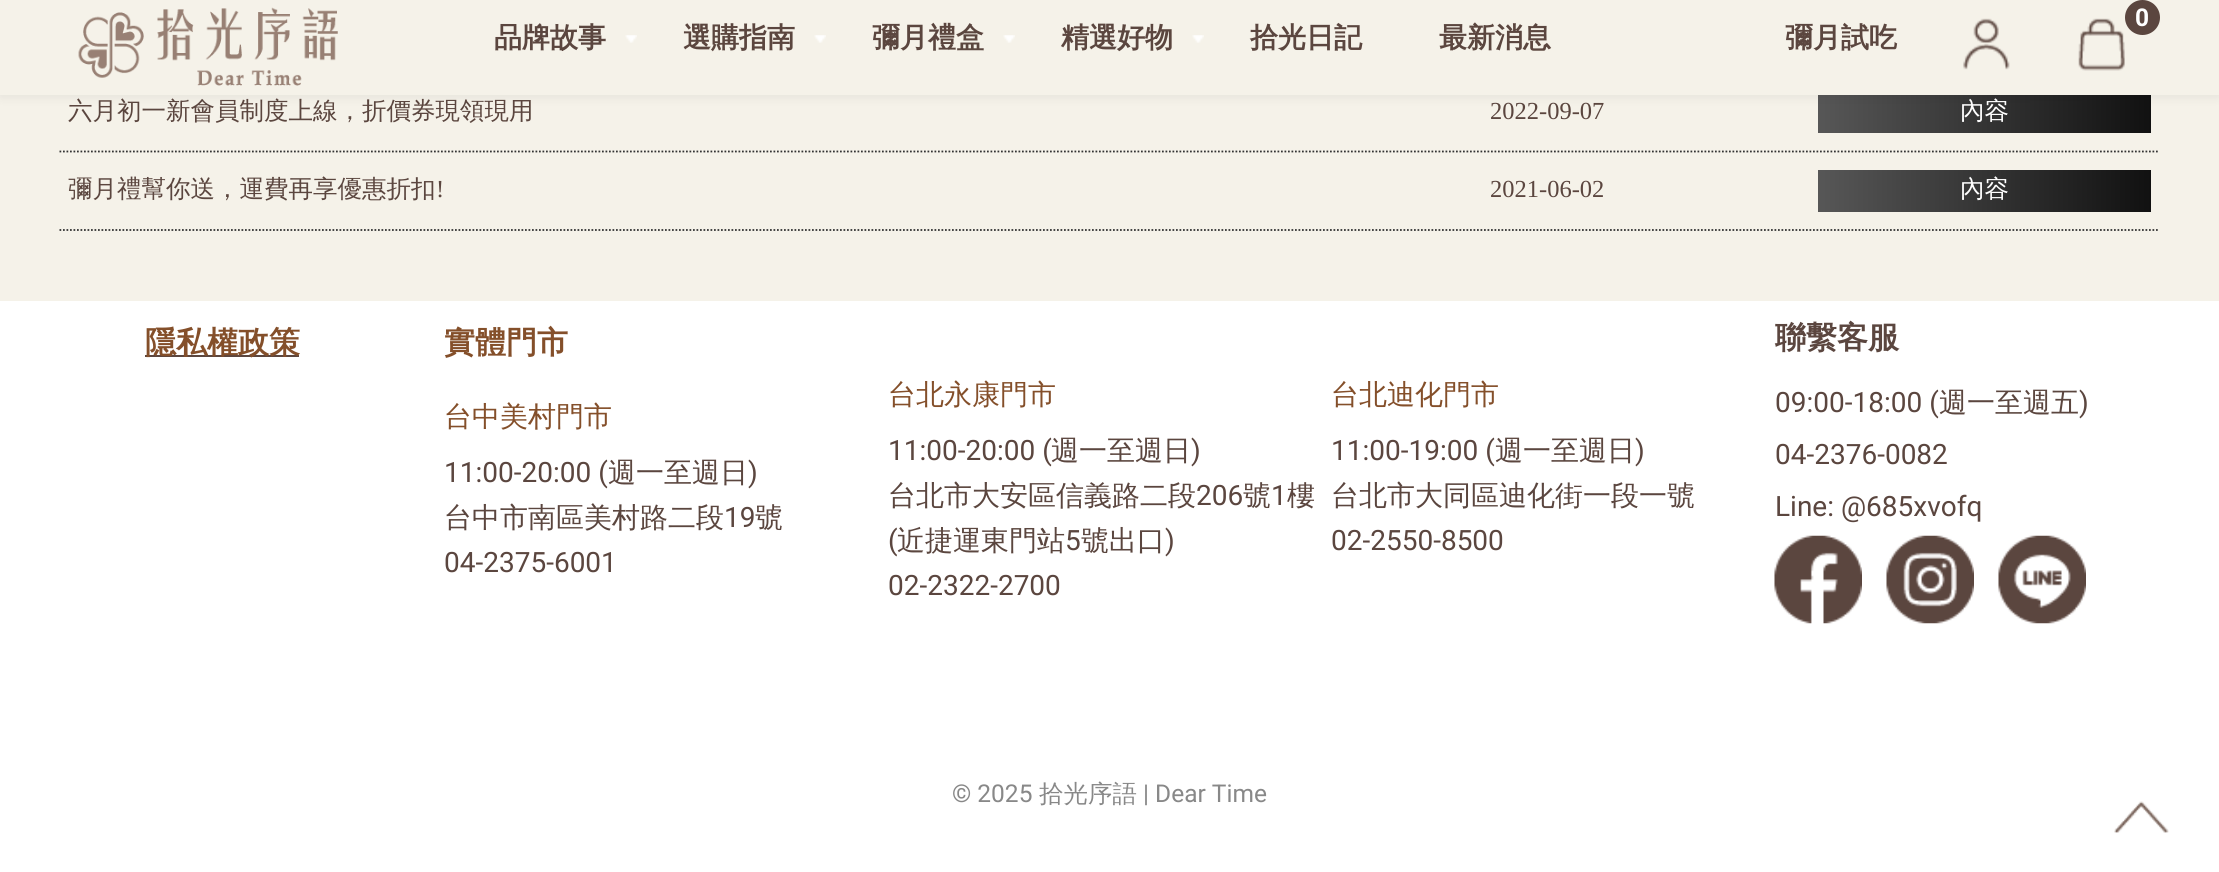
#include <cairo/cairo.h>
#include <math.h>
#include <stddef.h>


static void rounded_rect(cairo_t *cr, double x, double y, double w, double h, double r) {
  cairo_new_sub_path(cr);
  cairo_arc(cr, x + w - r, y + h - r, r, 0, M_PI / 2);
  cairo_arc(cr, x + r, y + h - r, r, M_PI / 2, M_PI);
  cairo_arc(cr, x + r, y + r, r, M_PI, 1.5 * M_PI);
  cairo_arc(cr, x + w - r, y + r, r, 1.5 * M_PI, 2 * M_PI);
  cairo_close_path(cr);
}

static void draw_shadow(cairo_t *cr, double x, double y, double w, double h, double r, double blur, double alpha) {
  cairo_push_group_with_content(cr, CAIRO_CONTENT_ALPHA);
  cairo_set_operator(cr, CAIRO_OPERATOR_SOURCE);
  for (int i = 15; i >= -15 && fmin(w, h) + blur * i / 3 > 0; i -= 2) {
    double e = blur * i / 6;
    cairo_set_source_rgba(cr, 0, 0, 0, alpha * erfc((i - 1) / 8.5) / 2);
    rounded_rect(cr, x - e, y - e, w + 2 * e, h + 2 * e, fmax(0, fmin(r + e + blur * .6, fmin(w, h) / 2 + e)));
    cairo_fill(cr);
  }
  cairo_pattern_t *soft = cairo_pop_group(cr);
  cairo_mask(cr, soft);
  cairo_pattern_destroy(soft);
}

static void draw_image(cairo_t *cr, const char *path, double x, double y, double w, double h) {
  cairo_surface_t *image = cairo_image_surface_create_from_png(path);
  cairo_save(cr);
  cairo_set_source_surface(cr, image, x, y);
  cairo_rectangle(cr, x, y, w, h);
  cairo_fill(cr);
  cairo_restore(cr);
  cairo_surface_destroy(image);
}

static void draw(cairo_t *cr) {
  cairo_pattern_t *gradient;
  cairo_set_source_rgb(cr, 245 / 255.0, 242 / 255.0, 233 / 255.0);
  cairo_paint(cr);
  gradient = cairo_pattern_create_linear(1818, 112, 2151, 112);
  cairo_pattern_add_color_stop_rgba(gradient, 0, 87 / 255.0, 87 / 255.0, 87 / 255.0, 1);
  cairo_pattern_add_color_stop_rgba(gradient, 1, 17 / 255.0, 17 / 255.0, 17 / 255.0, 1);
  cairo_set_source(cr, gradient);
  cairo_pattern_destroy(gradient);
  cairo_rectangle(cr, 1818, 95, 333, 38);
  cairo_fill(cr);
  cairo_set_source_rgb(cr, 10 / 255.0, 10 / 255.0, 10 / 255.0);
  draw_shadow(cr, 0, 4, 2219, 94, 0, 5, 0.06);
  cairo_set_source_rgb(cr, 245 / 255.0, 242 / 255.0, 233 / 255.0);
  cairo_rectangle(cr, 0, 0, 2219, 95);
  cairo_fill(cr);
  draw_image(cr, "images/1.png", 78, 7, 260, 79);
  draw_image(cr, "images/2.png", 625, 35, 12, 8);
  draw_image(cr, "images/2.png", 814, 35, 12, 8);
  draw_image(cr, "images/2.png", 1003, 35, 12, 8);
  draw_image(cr, "images/2.png", 1192, 35, 12, 8);
  draw_image(cr, "images/3.png", 1963, 18, 47, 52);
  draw_image(cr, "images/4.png", 2078, 18, 47, 53);
  cairo_set_source_rgb(cr, 91 / 255.0, 70 / 255.0, 63 / 255.0);
  cairo_arc(cr, 2142.5, 17.5, 17.5, 0, 2 * M_PI);
  cairo_fill(cr);
  cairo_new_path(cr);
  cairo_move_to(cr, 59.5, 151.5);
  cairo_line_to(cr, 2159.5, 151.5);
  cairo_set_source_rgb(cr, 51 / 255.0, 51 / 255.0, 51 / 255.0);
  cairo_set_line_width(cr, 1.8);
  cairo_set_dash(cr, (double[]){1.75, 1.75}, 2, 0);
  cairo_stroke(cr);
  cairo_new_path(cr);
  cairo_move_to(cr, 59.5, 230);
  cairo_line_to(cr, 2159.5, 230);
  cairo_stroke(cr);
  gradient = cairo_pattern_create_linear(1818, 191, 2151, 191);
  cairo_pattern_add_color_stop_rgba(gradient, 0, 87 / 255.0, 87 / 255.0, 87 / 255.0, 1);
  cairo_pattern_add_color_stop_rgba(gradient, 1, 17 / 255.0, 17 / 255.0, 17 / 255.0, 1);
  cairo_set_source(cr, gradient);
  cairo_pattern_destroy(gradient);
  cairo_rectangle(cr, 1818, 170, 333, 42);
  cairo_fill(cr);
  cairo_set_source_rgb(cr, 1, 1, 1);
  cairo_rectangle(cr, 0, 301, 2219, 571);
  cairo_fill(cr);
  cairo_set_source_rgb(cr, 91 / 255.0, 70 / 255.0, 63 / 255.0);
  cairo_rectangle(cr, 145, 355, 154, 2);
  cairo_fill(cr);
  draw_image(cr, "images/5.png", 1774, 535, 88, 89);
  draw_image(cr, "images/6.png", 1886, 535, 88, 89);
  draw_image(cr, "images/7.png", 1998, 535, 88, 89);
  draw_image(cr, "images/8.png", 2114, 801, 55, 32);
  cairo_select_font_face(cr, "WenQuanYi Zen Hei", CAIRO_FONT_SLANT_NORMAL, CAIRO_FONT_WEIGHT_BOLD);
  cairo_set_font_size(cr, 28);
  cairo_move_to(cr, 494, 47);
  cairo_show_text(cr, "品牌故事");
  cairo_move_to(cr, 683, 47);
  cairo_show_text(cr, "選購指南");
  cairo_move_to(cr, 872, 47);
  cairo_show_text(cr, "彌月禮盒");
  cairo_move_to(cr, 1061, 47);
  cairo_show_text(cr, "精選好物");
  cairo_move_to(cr, 1250, 47);
  cairo_show_text(cr, "拾光日記");
  cairo_move_to(cr, 1439, 47);
  cairo_show_text(cr, "最新消息");
  cairo_move_to(cr, 1785, 47);
  cairo_show_text(cr, "彌月試吃");
  cairo_select_font_face(cr, "Roboto", CAIRO_FONT_SLANT_NORMAL, CAIRO_FONT_WEIGHT_BOLD);
  cairo_set_font_size(cr, 24.5);
  cairo_set_source_rgb(cr, 1, 1, 1);
  cairo_move_to(cr, 2135, 26);
  cairo_show_text(cr, "0");
  cairo_select_font_face(cr, "WenQuanYi Zen Hei Medium", CAIRO_FONT_SLANT_NORMAL, CAIRO_FONT_WEIGHT_NORMAL);
  cairo_set_source_rgb(cr, 91 / 255.0, 70 / 255.0, 63 / 255.0);
  cairo_move_to(cr, 68, 119);
  cairo_show_text(cr, "六月初一新會員制度上線，折價券現領現用");
  cairo_select_font_face(cr, "Liberation Serif", CAIRO_FONT_SLANT_NORMAL, CAIRO_FONT_WEIGHT_NORMAL);
  cairo_move_to(cr, 1490, 119);
  cairo_show_text(cr, "2022-09-07");
  cairo_select_font_face(cr, "WenQuanYi Zen Hei Medium", CAIRO_FONT_SLANT_NORMAL, CAIRO_FONT_WEIGHT_NORMAL);
  cairo_set_source_rgb(cr, 1, 1, 1);
  cairo_move_to(cr, 1960, 119);
  cairo_show_text(cr, "內容");
  cairo_set_source_rgb(cr, 91 / 255.0, 70 / 255.0, 63 / 255.0);
  cairo_move_to(cr, 68, 197);
  cairo_show_text(cr, "彌月禮幫你送，運費再享優惠折扣");
  cairo_select_font_face(cr, "Liberation Serif", CAIRO_FONT_SLANT_NORMAL, CAIRO_FONT_WEIGHT_NORMAL);
  cairo_move_to(cr, 436, 197);
  cairo_show_text(cr, "!");
  cairo_move_to(cr, 1490, 197);
  cairo_show_text(cr, "2021-06-02");
  cairo_select_font_face(cr, "WenQuanYi Zen Hei Medium", CAIRO_FONT_SLANT_NORMAL, CAIRO_FONT_WEIGHT_NORMAL);
  cairo_set_source_rgb(cr, 1, 1, 1);
  cairo_move_to(cr, 1960, 197);
  cairo_show_text(cr, "內容");
  cairo_select_font_face(cr, "WenQuanYi Zen Hei", CAIRO_FONT_SLANT_NORMAL, CAIRO_FONT_WEIGHT_BOLD);
  cairo_set_font_size(cr, 31);
  cairo_set_source_rgb(cr, 132 / 255.0, 79 / 255.0, 42 / 255.0);
  cairo_move_to(cr, 145, 353);
  cairo_show_text(cr, "隱私權政策");
  cairo_move_to(cr, 444, 353);
  cairo_show_text(cr, "實體門市");
  cairo_select_font_face(cr, "WenQuanYi Zen Hei Medium", CAIRO_FONT_SLANT_NORMAL, CAIRO_FONT_WEIGHT_NORMAL);
  cairo_set_font_size(cr, 28);
  cairo_move_to(cr, 444, 426);
  cairo_show_text(cr, "台中美村門市");
  cairo_select_font_face(cr, "Roboto", CAIRO_FONT_SLANT_NORMAL, CAIRO_FONT_WEIGHT_NORMAL);
  cairo_set_source_rgb(cr, 91 / 255.0, 70 / 255.0, 63 / 255.0);
  cairo_move_to(cr, 444, 482);
  cairo_show_text(cr, "11:00-20:00 (");
  cairo_select_font_face(cr, "WenQuanYi Zen Hei Medium", CAIRO_FONT_SLANT_NORMAL, CAIRO_FONT_WEIGHT_NORMAL);
  cairo_move_to(cr, 608, 482);
  cairo_show_text(cr, "週一至週日");
  cairo_select_font_face(cr, "Roboto", CAIRO_FONT_SLANT_NORMAL, CAIRO_FONT_WEIGHT_NORMAL);
  cairo_move_to(cr, 748, 482);
  cairo_show_text(cr, ")");
  cairo_select_font_face(cr, "WenQuanYi Zen Hei Medium", CAIRO_FONT_SLANT_NORMAL, CAIRO_FONT_WEIGHT_NORMAL);
  cairo_move_to(cr, 444, 527);
  cairo_show_text(cr, "台中市南區美村路二段");
  cairo_select_font_face(cr, "Roboto", CAIRO_FONT_SLANT_NORMAL, CAIRO_FONT_WEIGHT_NORMAL);
  cairo_move_to(cr, 724, 527);
  cairo_show_text(cr, "19");
  cairo_select_font_face(cr, "WenQuanYi Zen Hei Medium", CAIRO_FONT_SLANT_NORMAL, CAIRO_FONT_WEIGHT_NORMAL);
  cairo_move_to(cr, 755, 527);
  cairo_show_text(cr, "號");
  cairo_select_font_face(cr, "Roboto", CAIRO_FONT_SLANT_NORMAL, CAIRO_FONT_WEIGHT_NORMAL);
  cairo_move_to(cr, 444, 572);
  cairo_show_text(cr, "04-2375-6001");
  cairo_select_font_face(cr, "WenQuanYi Zen Hei", CAIRO_FONT_SLANT_NORMAL, CAIRO_FONT_WEIGHT_BOLD);
  cairo_set_font_size(cr, 31);
  cairo_move_to(cr, 1775, 348);
  cairo_show_text(cr, "聯繫客服");
  cairo_select_font_face(cr, "Roboto", CAIRO_FONT_SLANT_NORMAL, CAIRO_FONT_WEIGHT_NORMAL);
  cairo_set_font_size(cr, 28);
  cairo_move_to(cr, 1775, 412);
  cairo_show_text(cr, "09:00-18:00 (");
  cairo_select_font_face(cr, "WenQuanYi Zen Hei Medium", CAIRO_FONT_SLANT_NORMAL, CAIRO_FONT_WEIGHT_NORMAL);
  cairo_move_to(cr, 1939, 412);
  cairo_show_text(cr, "週一至週五");
  cairo_select_font_face(cr, "Roboto", CAIRO_FONT_SLANT_NORMAL, CAIRO_FONT_WEIGHT_NORMAL);
  cairo_move_to(cr, 2079, 412);
  cairo_show_text(cr, ")");
  cairo_move_to(cr, 1775, 464);
  cairo_show_text(cr, "04-2376-0082");
  cairo_move_to(cr, 1775, 516);
  cairo_show_text(cr, "Line: @685xvofq");
  cairo_select_font_face(cr, "WenQuanYi Zen Hei Medium", CAIRO_FONT_SLANT_NORMAL, CAIRO_FONT_WEIGHT_NORMAL);
  cairo_set_source_rgb(cr, 132 / 255.0, 79 / 255.0, 42 / 255.0);
  cairo_move_to(cr, 888, 404);
  cairo_show_text(cr, "台北永康門市");
  cairo_select_font_face(cr, "Roboto", CAIRO_FONT_SLANT_NORMAL, CAIRO_FONT_WEIGHT_NORMAL);
  cairo_set_source_rgb(cr, 91 / 255.0, 70 / 255.0, 63 / 255.0);
  cairo_move_to(cr, 888, 460);
  cairo_show_text(cr, "11:00-20:00 (");
  cairo_select_font_face(cr, "WenQuanYi Zen Hei Medium", CAIRO_FONT_SLANT_NORMAL, CAIRO_FONT_WEIGHT_NORMAL);
  cairo_move_to(cr, 1051, 460);
  cairo_show_text(cr, "週一至週日");
  cairo_select_font_face(cr, "Roboto", CAIRO_FONT_SLANT_NORMAL, CAIRO_FONT_WEIGHT_NORMAL);
  cairo_move_to(cr, 1191, 460);
  cairo_show_text(cr, ")");
  cairo_select_font_face(cr, "WenQuanYi Zen Hei Medium", CAIRO_FONT_SLANT_NORMAL, CAIRO_FONT_WEIGHT_NORMAL);
  cairo_move_to(cr, 888, 505);
  cairo_show_text(cr, "台北市大安區信義路二段");
  cairo_select_font_face(cr, "Roboto", CAIRO_FONT_SLANT_NORMAL, CAIRO_FONT_WEIGHT_NORMAL);
  cairo_move_to(cr, 1196, 505);
  cairo_show_text(cr, "206");
  cairo_select_font_face(cr, "WenQuanYi Zen Hei Medium", CAIRO_FONT_SLANT_NORMAL, CAIRO_FONT_WEIGHT_NORMAL);
  cairo_move_to(cr, 1243, 505);
  cairo_show_text(cr, "號");
  cairo_select_font_face(cr, "Roboto", CAIRO_FONT_SLANT_NORMAL, CAIRO_FONT_WEIGHT_NORMAL);
  cairo_move_to(cr, 1271, 505);
  cairo_show_text(cr, "1");
  cairo_select_font_face(cr, "WenQuanYi Zen Hei Medium", CAIRO_FONT_SLANT_NORMAL, CAIRO_FONT_WEIGHT_NORMAL);
  cairo_move_to(cr, 1287, 505);
  cairo_show_text(cr, "樓");
  cairo_select_font_face(cr, "Roboto", CAIRO_FONT_SLANT_NORMAL, CAIRO_FONT_WEIGHT_NORMAL);
  cairo_move_to(cr, 888, 550);
  cairo_show_text(cr, "(");
  cairo_select_font_face(cr, "WenQuanYi Zen Hei Medium", CAIRO_FONT_SLANT_NORMAL, CAIRO_FONT_WEIGHT_NORMAL);
  cairo_move_to(cr, 897, 550);
  cairo_show_text(cr, "近捷運東門站");
  cairo_select_font_face(cr, "Roboto", CAIRO_FONT_SLANT_NORMAL, CAIRO_FONT_WEIGHT_NORMAL);
  cairo_move_to(cr, 1065, 550);
  cairo_show_text(cr, "5");
  cairo_select_font_face(cr, "WenQuanYi Zen Hei Medium", CAIRO_FONT_SLANT_NORMAL, CAIRO_FONT_WEIGHT_NORMAL);
  cairo_move_to(cr, 1081, 550);
  cairo_show_text(cr, "號出口");
  cairo_select_font_face(cr, "Roboto", CAIRO_FONT_SLANT_NORMAL, CAIRO_FONT_WEIGHT_NORMAL);
  cairo_move_to(cr, 1165, 550);
  cairo_show_text(cr, ")");
  cairo_move_to(cr, 888, 595);
  cairo_show_text(cr, "02-2322-2700");
  cairo_select_font_face(cr, "WenQuanYi Zen Hei Medium", CAIRO_FONT_SLANT_NORMAL, CAIRO_FONT_WEIGHT_NORMAL);
  cairo_set_source_rgb(cr, 132 / 255.0, 79 / 255.0, 42 / 255.0);
  cairo_move_to(cr, 1331, 404);
  cairo_show_text(cr, "台北迪化門市");
  cairo_select_font_face(cr, "Roboto", CAIRO_FONT_SLANT_NORMAL, CAIRO_FONT_WEIGHT_NORMAL);
  cairo_set_source_rgb(cr, 91 / 255.0, 70 / 255.0, 63 / 255.0);
  cairo_move_to(cr, 1331, 460);
  cairo_show_text(cr, "11:00-19:00 (");
  cairo_select_font_face(cr, "WenQuanYi Zen Hei Medium", CAIRO_FONT_SLANT_NORMAL, CAIRO_FONT_WEIGHT_NORMAL);
  cairo_move_to(cr, 1495, 460);
  cairo_show_text(cr, "週一至週日");
  cairo_select_font_face(cr, "Roboto", CAIRO_FONT_SLANT_NORMAL, CAIRO_FONT_WEIGHT_NORMAL);
  cairo_move_to(cr, 1635, 460);
  cairo_show_text(cr, ")");
  cairo_select_font_face(cr, "WenQuanYi Zen Hei Medium", CAIRO_FONT_SLANT_NORMAL, CAIRO_FONT_WEIGHT_NORMAL);
  cairo_move_to(cr, 1331, 505);
  cairo_show_text(cr, "台北市大同區迪化街一段一號");
  cairo_select_font_face(cr, "Roboto", CAIRO_FONT_SLANT_NORMAL, CAIRO_FONT_WEIGHT_NORMAL);
  cairo_move_to(cr, 1331, 550);
  cairo_show_text(cr, "02-2550-8500");
  cairo_set_font_size(cr, 24.5);
  cairo_set_source_rgb(cr, 136 / 255.0, 136 / 255.0, 136 / 255.0);
  cairo_move_to(cr, 952, 802);
  cairo_show_text(cr, "© 2025");
  cairo_select_font_face(cr, "WenQuanYi Zen Hei Medium", CAIRO_FONT_SLANT_NORMAL, CAIRO_FONT_WEIGHT_NORMAL);
  cairo_move_to(cr, 1039, 802);
  cairo_show_text(cr, "拾光序語");
  cairo_select_font_face(cr, "Roboto", CAIRO_FONT_SLANT_NORMAL, CAIRO_FONT_WEIGHT_NORMAL);
  cairo_move_to(cr, 1143, 802);
  cairo_show_text(cr, "| Dear Time");
}

int main(void) {
  cairo_surface_t *surface = cairo_image_surface_create(CAIRO_FORMAT_RGB24, 2219, 872);
  cairo_t *cr = cairo_create(surface);
  cairo_font_options_t *options = cairo_font_options_create();
  cairo_font_options_set_hint_metrics(options, CAIRO_HINT_METRICS_OFF);
  cairo_font_options_set_hint_style(options, CAIRO_HINT_STYLE_NONE);
  cairo_set_font_options(cr, options);
  cairo_set_miter_limit(cr, 4);
  draw(cr);
  cairo_surface_write_to_png(surface, "out.png");
  cairo_font_options_destroy(options);
  cairo_destroy(cr);
  cairo_surface_destroy(surface);
  return 0;
}
